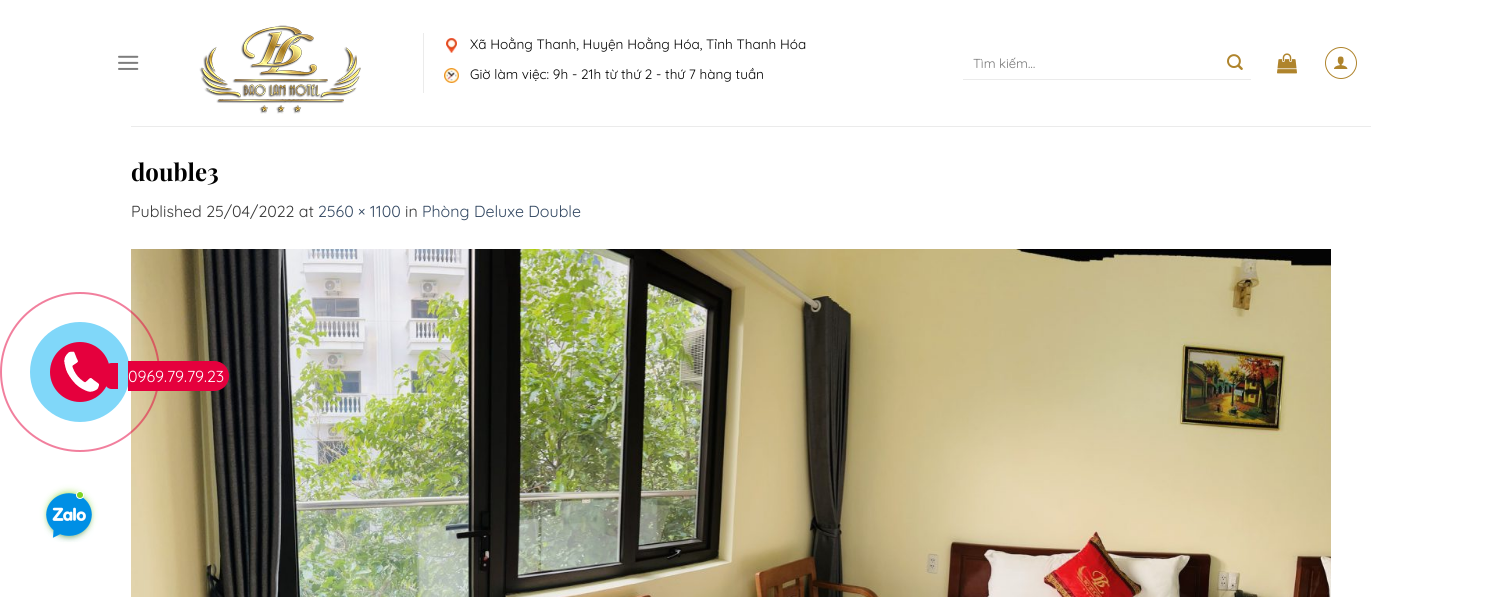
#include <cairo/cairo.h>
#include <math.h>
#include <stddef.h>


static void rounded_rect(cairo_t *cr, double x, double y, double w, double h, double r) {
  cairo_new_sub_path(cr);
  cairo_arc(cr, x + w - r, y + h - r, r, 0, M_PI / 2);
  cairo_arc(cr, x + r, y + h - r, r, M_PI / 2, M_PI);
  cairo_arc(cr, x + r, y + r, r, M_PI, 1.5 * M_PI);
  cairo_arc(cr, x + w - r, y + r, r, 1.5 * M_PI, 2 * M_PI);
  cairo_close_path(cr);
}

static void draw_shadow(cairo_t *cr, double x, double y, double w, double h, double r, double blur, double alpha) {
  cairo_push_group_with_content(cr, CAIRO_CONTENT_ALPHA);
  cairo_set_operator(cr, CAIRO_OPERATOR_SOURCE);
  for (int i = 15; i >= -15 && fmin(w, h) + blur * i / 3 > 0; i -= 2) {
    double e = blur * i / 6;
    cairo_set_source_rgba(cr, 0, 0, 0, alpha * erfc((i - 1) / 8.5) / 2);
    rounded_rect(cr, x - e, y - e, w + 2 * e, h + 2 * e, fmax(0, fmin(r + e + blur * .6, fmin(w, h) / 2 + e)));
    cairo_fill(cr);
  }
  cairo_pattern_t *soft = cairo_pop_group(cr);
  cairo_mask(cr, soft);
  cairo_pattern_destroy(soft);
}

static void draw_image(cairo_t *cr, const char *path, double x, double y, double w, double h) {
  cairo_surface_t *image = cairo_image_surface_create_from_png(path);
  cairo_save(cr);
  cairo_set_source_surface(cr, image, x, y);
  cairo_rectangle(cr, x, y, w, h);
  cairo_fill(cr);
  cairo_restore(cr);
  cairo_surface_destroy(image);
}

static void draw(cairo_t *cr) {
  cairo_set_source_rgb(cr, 1, 1, 1);
  cairo_paint(cr);
  draw_image(cr, "images/1.png", 118, 55, 21, 15);
  draw_image(cr, "images/2.png", 199, 25, 162, 89);
  cairo_set_source_rgb(cr, 235 / 255.0, 235 / 255.0, 235 / 255.0);
  cairo_rectangle(cr, 423, 33, 1, 60);
  cairo_fill(cr);
  draw_image(cr, "images/3.png", 446, 38, 11, 15);
  draw_image(cr, "images/4.png", 444, 68, 15, 15);
  cairo_rectangle(cr, 963, 79, 288, 1);
  cairo_fill(cr);
  draw_image(cr, "images/5.png", 1227, 54, 16, 16);
  draw_image(cr, "images/6.png", 1277, 53, 20, 21);
  cairo_arc(cr, 1341, 63, 15.5, 0, 2 * M_PI);
  cairo_set_source_rgb(cr, 175 / 255.0, 132 / 255.0, 44 / 255.0);
  cairo_set_line_width(cr, 1);
  cairo_stroke(cr);
  draw_image(cr, "images/7.png", 1334, 56, 14, 13);
  cairo_set_source_rgb(cr, 235 / 255.0, 235 / 255.0, 235 / 255.0);
  cairo_rectangle(cr, 131, 126, 1240, 1);
  cairo_fill(cr);
  draw_image(cr, "images/8.png", 131, 249, 1200, 348);
  cairo_arc(cr, 80, 372, 79, 0, 2 * M_PI);
  cairo_set_source_rgba(cr, 229 / 255.0, 0, 61 / 255.0, 0.5);
  cairo_set_line_width(cr, 2);
  cairo_stroke(cr);
  cairo_set_source_rgb(cr, 128 / 255.0, 215 / 255.0, 249 / 255.0);
  cairo_arc(cr, 80, 372, 50, 0, 2 * M_PI);
  cairo_fill(cr);
  cairo_set_source_rgb(cr, 229 / 255.0, 0, 61 / 255.0);
  cairo_arc(cr, 80, 372, 30, 0, 2 * M_PI);
  cairo_fill(cr);
  draw_image(cr, "images/9.png", 64, 351, 35, 41);
  cairo_new_path(cr);
  cairo_move_to(cr, 111.5, 363);
  cairo_line_to(cr, 118, 363);
  cairo_line_to(cr, 118, 389);
  cairo_line_to(cr, 111.5, 389);
  cairo_curve_to(cr, 108, 389, 105, 386, 105, 382.5);
  cairo_line_to(cr, 105, 369.5);
  cairo_curve_to(cr, 105, 366, 108, 363, 111.5, 363);
  cairo_close_path(cr);
  cairo_fill(cr);
  cairo_new_path(cr);
  cairo_move_to(cr, 128, 361);
  cairo_line_to(cr, 214, 361);
  cairo_curve_to(cr, 222.5, 361, 229, 367.5, 229, 376);
  cairo_curve_to(cr, 229, 384.5, 222.5, 391, 214, 391);
  cairo_line_to(cr, 128, 391);
  cairo_close_path(cr);
  cairo_fill(cr);
  cairo_set_source_rgb(cr, 126 / 255.0, 211 / 255.0, 33 / 255.0);
  draw_shadow(cr, 49, 494, 40, 40, 20, 4, 1);
  draw_image(cr, "images/10.png", 44, 493, 50, 49);
  cairo_set_source_rgb(cr, 126 / 255.0, 211 / 255.0, 33 / 255.0);
  cairo_arc(cr, 80, 495, 3.5, 0, 2 * M_PI);
  cairo_fill_preserve(cr);
  cairo_set_source_rgb(cr, 1, 1, 1);
  cairo_set_line_width(cr, 1);
  cairo_stroke(cr);
  cairo_select_font_face(cr, "Quicksand", CAIRO_FONT_SLANT_NORMAL, CAIRO_FONT_WEIGHT_NORMAL);
  cairo_set_font_size(cr, 13.6);
  cairo_set_source_rgb(cr, 0, 0, 0);
  cairo_move_to(cr, 470, 49);
  cairo_show_text(cr, "Xã Hoằng Thanh, Huyện Hoằng Hóa, Tỉnh Thanh Hóa");
  cairo_move_to(cr, 470, 79);
  cairo_show_text(cr, "Giờ làm việc: 9h - 21h từ thứ 2 - thứ 7 hàng tuần");
  cairo_set_font_size(cr, 13);
  cairo_set_source_rgb(cr, 117 / 255.0, 117 / 255.0, 117 / 255.0);
  cairo_move_to(cr, 973, 68);
  cairo_show_text(cr, "Tìm kiếm…");
  cairo_select_font_face(cr, "Playfair Display", CAIRO_FONT_SLANT_NORMAL, CAIRO_FONT_WEIGHT_BOLD);
  cairo_set_font_size(cr, 24);
  cairo_set_source_rgb(cr, 0, 0, 0);
  cairo_move_to(cr, 131, 181);
  cairo_show_text(cr, "double3");
  cairo_select_font_face(cr, "Quicksand", CAIRO_FONT_SLANT_NORMAL, CAIRO_FONT_WEIGHT_NORMAL);
  cairo_set_font_size(cr, 16);
  cairo_set_source_rgb(cr, 54 / 255.0, 54 / 255.0, 54 / 255.0);
  cairo_move_to(cr, 131, 217);
  cairo_show_text(cr, "Published 25/04/2022 at");
  cairo_set_source_rgb(cr, 51 / 255.0, 72 / 255.0, 98 / 255.0);
  cairo_move_to(cr, 318, 217);
  cairo_show_text(cr, "2560 × 1100");
  cairo_set_source_rgb(cr, 54 / 255.0, 54 / 255.0, 54 / 255.0);
  cairo_move_to(cr, 405, 217);
  cairo_show_text(cr, "in");
  cairo_set_source_rgb(cr, 51 / 255.0, 72 / 255.0, 98 / 255.0);
  cairo_move_to(cr, 422, 217);
  cairo_show_text(cr, "Phòng Deluxe Double");
  cairo_set_source_rgb(cr, 1, 1, 1);
  cairo_move_to(cr, 128, 382);
  cairo_show_text(cr, "0969.79.79.23");
}

int main(void) {
  cairo_surface_t *surface = cairo_image_surface_create(CAIRO_FORMAT_RGB24, 1501, 597);
  cairo_t *cr = cairo_create(surface);
  cairo_font_options_t *options = cairo_font_options_create();
  cairo_font_options_set_hint_metrics(options, CAIRO_HINT_METRICS_OFF);
  cairo_font_options_set_hint_style(options, CAIRO_HINT_STYLE_NONE);
  cairo_set_font_options(cr, options);
  cairo_set_miter_limit(cr, 4);
  draw(cr);
  cairo_surface_write_to_png(surface, "out.png");
  cairo_font_options_destroy(options);
  cairo_destroy(cr);
  cairo_surface_destroy(surface);
  return 0;
}
